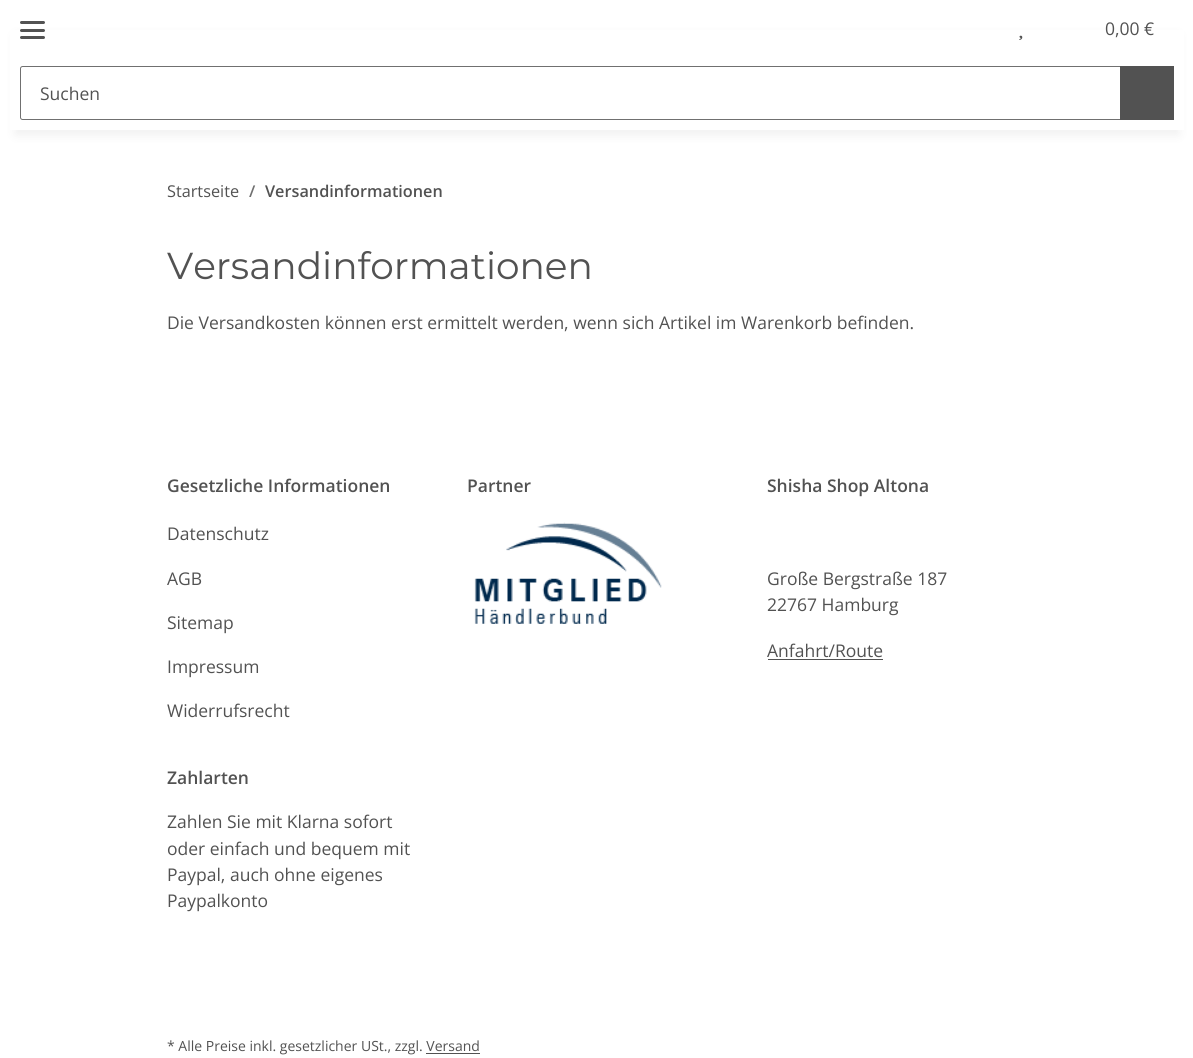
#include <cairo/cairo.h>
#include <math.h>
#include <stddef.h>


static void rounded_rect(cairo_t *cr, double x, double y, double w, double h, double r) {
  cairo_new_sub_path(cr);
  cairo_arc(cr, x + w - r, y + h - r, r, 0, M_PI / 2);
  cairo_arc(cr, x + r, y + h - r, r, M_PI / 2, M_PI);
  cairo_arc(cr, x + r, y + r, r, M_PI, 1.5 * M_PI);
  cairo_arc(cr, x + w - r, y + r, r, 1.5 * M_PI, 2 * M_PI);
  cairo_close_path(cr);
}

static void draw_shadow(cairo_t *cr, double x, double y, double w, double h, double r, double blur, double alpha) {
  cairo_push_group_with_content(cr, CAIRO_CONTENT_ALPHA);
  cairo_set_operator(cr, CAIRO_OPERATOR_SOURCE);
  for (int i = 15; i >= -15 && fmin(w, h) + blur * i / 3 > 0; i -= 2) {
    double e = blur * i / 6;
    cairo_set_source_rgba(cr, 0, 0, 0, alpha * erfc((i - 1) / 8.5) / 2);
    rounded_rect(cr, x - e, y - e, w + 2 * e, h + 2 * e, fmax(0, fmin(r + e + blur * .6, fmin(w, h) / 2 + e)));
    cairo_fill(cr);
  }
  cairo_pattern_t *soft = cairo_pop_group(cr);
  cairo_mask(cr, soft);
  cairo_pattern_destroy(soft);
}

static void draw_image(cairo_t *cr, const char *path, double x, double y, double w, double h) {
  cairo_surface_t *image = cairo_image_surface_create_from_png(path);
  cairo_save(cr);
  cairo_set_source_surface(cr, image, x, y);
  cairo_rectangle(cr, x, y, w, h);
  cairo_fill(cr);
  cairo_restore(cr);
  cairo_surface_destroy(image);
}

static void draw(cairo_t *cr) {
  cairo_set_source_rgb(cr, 1, 1, 1);
  cairo_paint(cr);
  cairo_set_source_rgb(cr, 0, 0, 0);
  draw_shadow(cr, 15, 35, 1164, 100, 0, 5.5, 0.06);
  cairo_set_source_rgb(cr, 1, 1, 1);
  cairo_rectangle(cr, 10, 30, 1174, 100);
  cairo_fill(cr);
  cairo_set_source_rgb(cr, 82 / 255.0, 82 / 255.0, 82 / 255.0);
  rounded_rect(cr, 20, 29, 25, 3, 1.5);
  cairo_fill(cr);
  rounded_rect(cr, 20, 21, 25, 3, 1.5);
  cairo_fill(cr);
  rounded_rect(cr, 20, 36, 25, 3, 1.5);
  cairo_fill(cr);
  draw_image(cr, "images/1.png", 1019, 35, 4, 5);
  cairo_new_path(cr);
  cairo_move_to(cr, 22.5, 66.5);
  cairo_line_to(cr, 1120.5, 66.5);
  cairo_line_to(cr, 1120.5, 119.5);
  cairo_line_to(cr, 22.5, 119.5);
  cairo_curve_to(cr, 21.5, 119.5, 20.5, 118.5, 20.5, 117.5);
  cairo_line_to(cr, 20.5, 68.5);
  cairo_curve_to(cr, 20.5, 67.5, 21.5, 66.5, 22.5, 66.5);
  cairo_close_path(cr);
  cairo_set_source_rgb(cr, 112 / 255.0, 112 / 255.0, 112 / 255.0);
  cairo_set_line_width(cr, 1);
  cairo_stroke(cr);
  cairo_set_source_rgb(cr, 82 / 255.0, 82 / 255.0, 82 / 255.0);
  cairo_rectangle(cr, 1120, 66, 54, 54);
  cairo_fill(cr);
  draw_image(cr, "images/2.png", 474, 522, 188, 102);
  cairo_rectangle(cr, 768, 659, 115, 1);
  cairo_fill(cr);
  cairo_rectangle(cr, 426, 1053, 54, 1);
  cairo_fill(cr);
  cairo_select_font_face(cr, "Open Sans", CAIRO_FONT_SLANT_NORMAL, CAIRO_FONT_WEIGHT_NORMAL);
  cairo_set_font_size(cr, 17.5);
  cairo_move_to(cr, 1105, 35);
  cairo_show_text(cr, "0,00 €");
  cairo_move_to(cr, 40, 100);
  cairo_show_text(cr, "Suchen");
  cairo_set_font_size(cr, 16.25);
  cairo_move_to(cr, 167, 197);
  cairo_show_text(cr, "Startseite");
  cairo_select_font_face(cr, "Open Sans SemiBold", CAIRO_FONT_SLANT_NORMAL, CAIRO_FONT_WEIGHT_NORMAL);
  cairo_set_source_rgb(cr, 112 / 255.0, 112 / 255.0, 112 / 255.0);
  cairo_move_to(cr, 249, 197);
  cairo_show_text(cr, "/");
  cairo_set_source_rgb(cr, 82 / 255.0, 82 / 255.0, 82 / 255.0);
  cairo_move_to(cr, 265, 197);
  cairo_show_text(cr, "Versandinformationen");
  cairo_select_font_face(cr, "Montserrat", CAIRO_FONT_SLANT_NORMAL, CAIRO_FONT_WEIGHT_NORMAL);
  cairo_set_font_size(cr, 37.5);
  cairo_move_to(cr, 167, 279);
  cairo_show_text(cr, "Versandinformationen");
  cairo_select_font_face(cr, "Open Sans", CAIRO_FONT_SLANT_NORMAL, CAIRO_FONT_WEIGHT_NORMAL);
  cairo_set_font_size(cr, 17.5);
  cairo_move_to(cr, 167, 329);
  cairo_show_text(cr, "Die Versandkosten können erst ermittelt werden, wenn sich Artikel im Warenkorb befinden.");
  cairo_select_font_face(cr, "Open Sans SemiBold", CAIRO_FONT_SLANT_NORMAL, CAIRO_FONT_WEIGHT_NORMAL);
  cairo_move_to(cr, 167, 492);
  cairo_show_text(cr, "Gesetzliche Informationen");
  cairo_select_font_face(cr, "Open Sans", CAIRO_FONT_SLANT_NORMAL, CAIRO_FONT_WEIGHT_NORMAL);
  cairo_move_to(cr, 167, 540);
  cairo_show_text(cr, "Datenschutz");
  cairo_move_to(cr, 167, 585);
  cairo_show_text(cr, "AGB");
  cairo_move_to(cr, 167, 629);
  cairo_show_text(cr, "Sitemap");
  cairo_move_to(cr, 167, 673);
  cairo_show_text(cr, "Impressum");
  cairo_move_to(cr, 167, 717);
  cairo_show_text(cr, "Widerrufsrecht");
  cairo_select_font_face(cr, "Open Sans SemiBold", CAIRO_FONT_SLANT_NORMAL, CAIRO_FONT_WEIGHT_NORMAL);
  cairo_move_to(cr, 467, 492);
  cairo_show_text(cr, "Partner");
  cairo_move_to(cr, 767, 492);
  cairo_show_text(cr, "Shisha Shop Altona");
  cairo_select_font_face(cr, "Open Sans", CAIRO_FONT_SLANT_NORMAL, CAIRO_FONT_WEIGHT_NORMAL);
  cairo_move_to(cr, 767, 585);
  cairo_show_text(cr, "Große Bergstraße 187");
  cairo_move_to(cr, 767, 611);
  cairo_show_text(cr, "22767 Hamburg");
  cairo_move_to(cr, 767, 657);
  cairo_show_text(cr, "Anfahrt/Route");
  cairo_select_font_face(cr, "Open Sans SemiBold", CAIRO_FONT_SLANT_NORMAL, CAIRO_FONT_WEIGHT_NORMAL);
  cairo_move_to(cr, 167, 784);
  cairo_show_text(cr, "Zahlarten");
  cairo_select_font_face(cr, "Open Sans", CAIRO_FONT_SLANT_NORMAL, CAIRO_FONT_WEIGHT_NORMAL);
  cairo_move_to(cr, 167, 828);
  cairo_show_text(cr, "Zahlen Sie mit Klarna sofort");
  cairo_move_to(cr, 167, 855);
  cairo_show_text(cr, "oder einfach und bequem mit");
  cairo_move_to(cr, 167, 881);
  cairo_show_text(cr, "Paypal, auch ohne eigenes");
  cairo_move_to(cr, 167, 907);
  cairo_show_text(cr, "Paypalkonto");
  cairo_set_font_size(cr, 14);
  cairo_move_to(cr, 167, 1051);
  cairo_show_text(cr, "* Alle Preise inkl. gesetzlicher USt., zzgl. Versand");
}

int main(void) {
  cairo_surface_t *surface = cairo_image_surface_create(CAIRO_FORMAT_RGB24, 1193, 1058);
  cairo_t *cr = cairo_create(surface);
  cairo_font_options_t *options = cairo_font_options_create();
  cairo_font_options_set_hint_metrics(options, CAIRO_HINT_METRICS_OFF);
  cairo_font_options_set_hint_style(options, CAIRO_HINT_STYLE_NONE);
  cairo_set_font_options(cr, options);
  cairo_set_miter_limit(cr, 4);
  draw(cr);
  cairo_surface_write_to_png(surface, "out.png");
  cairo_font_options_destroy(options);
  cairo_destroy(cr);
  cairo_surface_destroy(surface);
  return 0;
}
